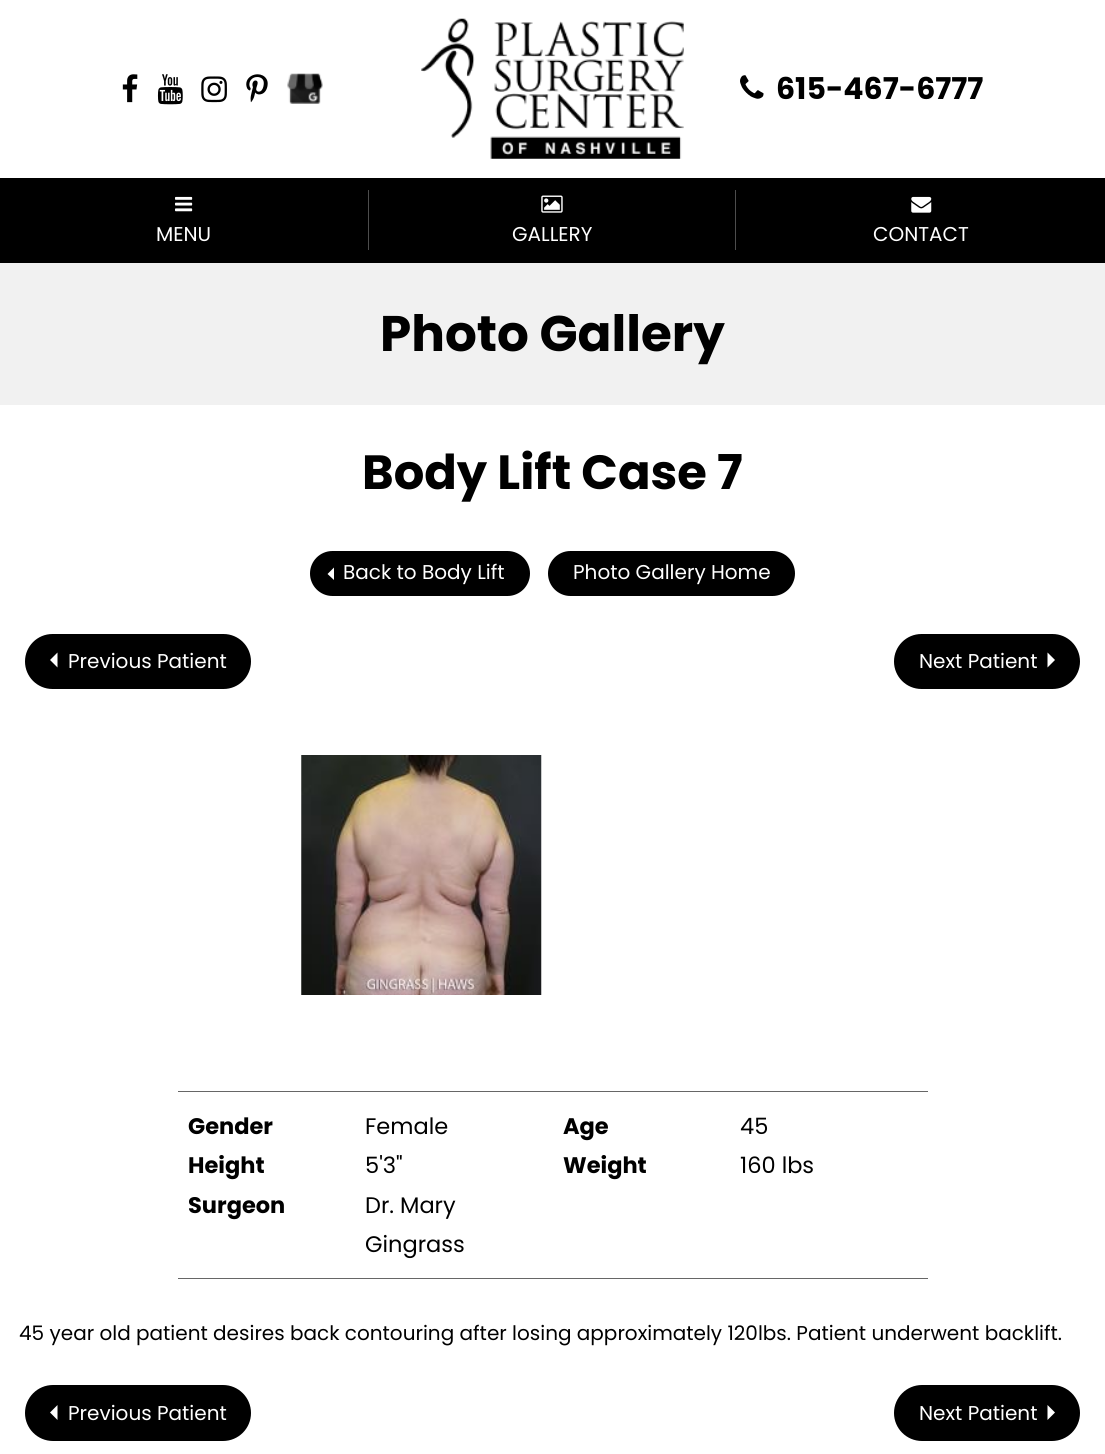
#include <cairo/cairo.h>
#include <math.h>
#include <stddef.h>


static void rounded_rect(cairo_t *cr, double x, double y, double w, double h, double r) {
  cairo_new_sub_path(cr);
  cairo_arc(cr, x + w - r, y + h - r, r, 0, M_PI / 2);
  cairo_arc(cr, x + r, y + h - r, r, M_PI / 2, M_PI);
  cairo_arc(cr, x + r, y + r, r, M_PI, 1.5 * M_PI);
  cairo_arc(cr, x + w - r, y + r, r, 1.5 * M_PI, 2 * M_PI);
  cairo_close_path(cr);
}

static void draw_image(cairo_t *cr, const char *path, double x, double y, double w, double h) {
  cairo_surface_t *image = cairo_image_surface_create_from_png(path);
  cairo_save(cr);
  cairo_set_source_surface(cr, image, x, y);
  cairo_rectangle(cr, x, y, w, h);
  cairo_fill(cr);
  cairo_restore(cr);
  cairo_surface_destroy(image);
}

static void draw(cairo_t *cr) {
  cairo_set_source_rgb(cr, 1, 1, 1);
  cairo_paint(cr);
  draw_image(cr, "images/1.png", 122, 74, 16, 29);
  draw_image(cr, "images/2.png", 157, 74, 26, 31);
  draw_image(cr, "images/3.png", 201, 76, 26, 27);
  draw_image(cr, "images/4.png", 246, 74, 22, 29);
  draw_image(cr, "images/5.png", 287, 73, 36, 31);
  draw_image(cr, "images/6.png", 421, 18, 263, 141);
  draw_image(cr, "images/7.png", 740, 75, 24, 24);
  cairo_set_source_rgb(cr, 0, 0, 0);
  cairo_rectangle(cr, 0, 178, 1105, 85);
  cairo_fill(cr);
  cairo_set_source_rgb(cr, 77 / 255.0, 77 / 255.0, 77 / 255.0);
  cairo_rectangle(cr, 368, 190, 1, 60);
  cairo_fill(cr);
  draw_image(cr, "images/8.png", 175, 196, 18, 16);
  cairo_rectangle(cr, 735, 190, 1, 60);
  cairo_fill(cr);
  draw_image(cr, "images/9.png", 541, 195, 22, 18);
  draw_image(cr, "images/10.png", 911, 196, 21, 17);
  cairo_set_source_rgb(cr, 241 / 255.0, 241 / 255.0, 241 / 255.0);
  cairo_rectangle(cr, 0, 263, 1105, 142);
  cairo_fill(cr);
  cairo_set_source_rgb(cr, 0, 0, 0);
  rounded_rect(cr, 310, 551, 220, 45, 22.5);
  cairo_fill(cr);
  cairo_set_source_rgb(cr, 1, 1, 1);
  cairo_new_path(cr);
  cairo_move_to(cr, 334, 567.5);
  cairo_line_to(cr, 334, 580);
  cairo_line_to(cr, 327.5, 574);
  cairo_close_path(cr);
  cairo_fill(cr);
  cairo_set_source_rgb(cr, 0, 0, 0);
  rounded_rect(cr, 548, 551, 247, 45, 22.5);
  cairo_fill(cr);
  rounded_rect(cr, 25, 634, 226, 55, 27.5);
  cairo_fill(cr);
  cairo_set_source_rgb(cr, 1, 1, 1);
  cairo_new_path(cr);
  cairo_move_to(cr, 57.5, 652.5);
  cairo_line_to(cr, 57.5, 667.5);
  cairo_line_to(cr, 50, 660);
  cairo_close_path(cr);
  cairo_fill(cr);
  cairo_set_source_rgb(cr, 0, 0, 0);
  rounded_rect(cr, 894, 634, 186, 55, 27.5);
  cairo_fill(cr);
  cairo_set_source_rgb(cr, 1, 1, 1);
  cairo_new_path(cr);
  cairo_move_to(cr, 1047.5, 667.5);
  cairo_line_to(cr, 1047.5, 652.5);
  cairo_line_to(cr, 1055, 660);
  cairo_close_path(cr);
  cairo_fill(cr);
  draw_image(cr, "images/11.png", 301, 755, 241, 240);
  cairo_set_source_rgb(cr, 102 / 255.0, 102 / 255.0, 102 / 255.0);
  cairo_rectangle(cr, 178, 1091, 750, 1);
  cairo_fill(cr);
  cairo_rectangle(cr, 178, 1278, 750, 1);
  cairo_fill(cr);
  cairo_set_source_rgb(cr, 0, 0, 0);
  rounded_rect(cr, 25, 1385, 226, 56, 28);
  cairo_fill(cr);
  cairo_set_source_rgb(cr, 1, 1, 1);
  cairo_new_path(cr);
  cairo_move_to(cr, 57.5, 1405);
  cairo_line_to(cr, 57.5, 1420);
  cairo_line_to(cr, 50, 1412.5);
  cairo_close_path(cr);
  cairo_fill(cr);
  cairo_set_source_rgb(cr, 0, 0, 0);
  rounded_rect(cr, 894, 1385, 186, 56, 28);
  cairo_fill(cr);
  cairo_set_source_rgb(cr, 1, 1, 1);
  cairo_new_path(cr);
  cairo_move_to(cr, 1047.5, 1420);
  cairo_line_to(cr, 1047.5, 1405);
  cairo_line_to(cr, 1055, 1412.5);
  cairo_close_path(cr);
  cairo_fill(cr);
  cairo_select_font_face(cr, "Poppins", CAIRO_FONT_SLANT_NORMAL, CAIRO_FONT_WEIGHT_BOLD);
  cairo_set_font_size(cr, 30);
  cairo_set_source_rgb(cr, 0, 0, 0);
  cairo_move_to(cr, 776, 99);
  cairo_show_text(cr, "615-467-6777");
  cairo_select_font_face(cr, "Poppins", CAIRO_FONT_SLANT_NORMAL, CAIRO_FONT_WEIGHT_NORMAL);
  cairo_set_font_size(cr, 20);
  cairo_set_source_rgb(cr, 1, 1, 1);
  cairo_move_to(cr, 156, 241);
  cairo_show_text(cr, "MENU");
  cairo_move_to(cr, 512, 241);
  cairo_show_text(cr, "GALLERY");
  cairo_move_to(cr, 873, 241);
  cairo_show_text(cr, "CONTACT");
  cairo_select_font_face(cr, "Poppins", CAIRO_FONT_SLANT_NORMAL, CAIRO_FONT_WEIGHT_BOLD);
  cairo_set_font_size(cr, 50);
  cairo_set_source_rgb(cr, 0, 0, 0);
  cairo_move_to(cr, 380, 351);
  cairo_show_text(cr, "Photo Gallery");
  cairo_set_font_size(cr, 48);
  cairo_move_to(cr, 362, 489);
  cairo_show_text(cr, "Body Lift Case 7");
  cairo_select_font_face(cr, "Poppins", CAIRO_FONT_SLANT_NORMAL, CAIRO_FONT_WEIGHT_NORMAL);
  cairo_set_font_size(cr, 20);
  cairo_set_source_rgb(cr, 1, 1, 1);
  cairo_move_to(cr, 343, 579);
  cairo_show_text(cr, "Back to Body Lift");
  cairo_move_to(cr, 573, 579);
  cairo_show_text(cr, "Photo Gallery Home");
  cairo_move_to(cr, 68, 668);
  cairo_show_text(cr, "Previous Patient");
  cairo_move_to(cr, 919, 668);
  cairo_show_text(cr, "Next Patient");
  cairo_select_font_face(cr, "Poppins", CAIRO_FONT_SLANT_NORMAL, CAIRO_FONT_WEIGHT_BOLD);
  cairo_set_font_size(cr, 22.5);
  cairo_set_source_rgb(cr, 0, 0, 0);
  cairo_move_to(cr, 188, 1134);
  cairo_show_text(cr, "Gender");
  cairo_select_font_face(cr, "Poppins", CAIRO_FONT_SLANT_NORMAL, CAIRO_FONT_WEIGHT_NORMAL);
  cairo_move_to(cr, 365, 1134);
  cairo_show_text(cr, "Female");
  cairo_select_font_face(cr, "Poppins", CAIRO_FONT_SLANT_NORMAL, CAIRO_FONT_WEIGHT_BOLD);
  cairo_move_to(cr, 563, 1134);
  cairo_show_text(cr, "Age");
  cairo_select_font_face(cr, "Poppins", CAIRO_FONT_SLANT_NORMAL, CAIRO_FONT_WEIGHT_NORMAL);
  cairo_move_to(cr, 740, 1134);
  cairo_show_text(cr, "45");
  cairo_select_font_face(cr, "Poppins", CAIRO_FONT_SLANT_NORMAL, CAIRO_FONT_WEIGHT_BOLD);
  cairo_move_to(cr, 188, 1173);
  cairo_show_text(cr, "Height");
  cairo_select_font_face(cr, "Poppins", CAIRO_FONT_SLANT_NORMAL, CAIRO_FONT_WEIGHT_NORMAL);
  cairo_move_to(cr, 365, 1173);
  cairo_show_text(cr, "5'3\"");
  cairo_select_font_face(cr, "Poppins", CAIRO_FONT_SLANT_NORMAL, CAIRO_FONT_WEIGHT_BOLD);
  cairo_move_to(cr, 563, 1173);
  cairo_show_text(cr, "Weight");
  cairo_select_font_face(cr, "Poppins", CAIRO_FONT_SLANT_NORMAL, CAIRO_FONT_WEIGHT_NORMAL);
  cairo_move_to(cr, 740, 1173);
  cairo_show_text(cr, "160 lbs");
  cairo_select_font_face(cr, "Poppins", CAIRO_FONT_SLANT_NORMAL, CAIRO_FONT_WEIGHT_BOLD);
  cairo_move_to(cr, 188, 1213);
  cairo_show_text(cr, "Surgeon");
  cairo_select_font_face(cr, "Poppins", CAIRO_FONT_SLANT_NORMAL, CAIRO_FONT_WEIGHT_NORMAL);
  cairo_move_to(cr, 365, 1213);
  cairo_show_text(cr, "Dr. Mary");
  cairo_move_to(cr, 365, 1252);
  cairo_show_text(cr, "Gingrass");
  cairo_set_font_size(cr, 20);
  cairo_move_to(cr, 19, 1340);
  cairo_show_text(cr, "45 year old patient desires back contouring after losing approximately 120lbs. Patient underwent backlift.");
  cairo_set_source_rgb(cr, 1, 1, 1);
  cairo_move_to(cr, 68, 1420);
  cairo_show_text(cr, "Previous Patient");
  cairo_move_to(cr, 919, 1420);
  cairo_show_text(cr, "Next Patient");
}

int main(void) {
  cairo_surface_t *surface = cairo_image_surface_create(CAIRO_FORMAT_RGB24, 1105, 1454);
  cairo_t *cr = cairo_create(surface);
  cairo_font_options_t *options = cairo_font_options_create();
  cairo_font_options_set_hint_metrics(options, CAIRO_HINT_METRICS_OFF);
  cairo_font_options_set_hint_style(options, CAIRO_HINT_STYLE_NONE);
  cairo_set_font_options(cr, options);
  cairo_set_miter_limit(cr, 4);
  draw(cr);
  cairo_surface_write_to_png(surface, "out.png");
  cairo_font_options_destroy(options);
  cairo_destroy(cr);
  cairo_surface_destroy(surface);
  return 0;
}
